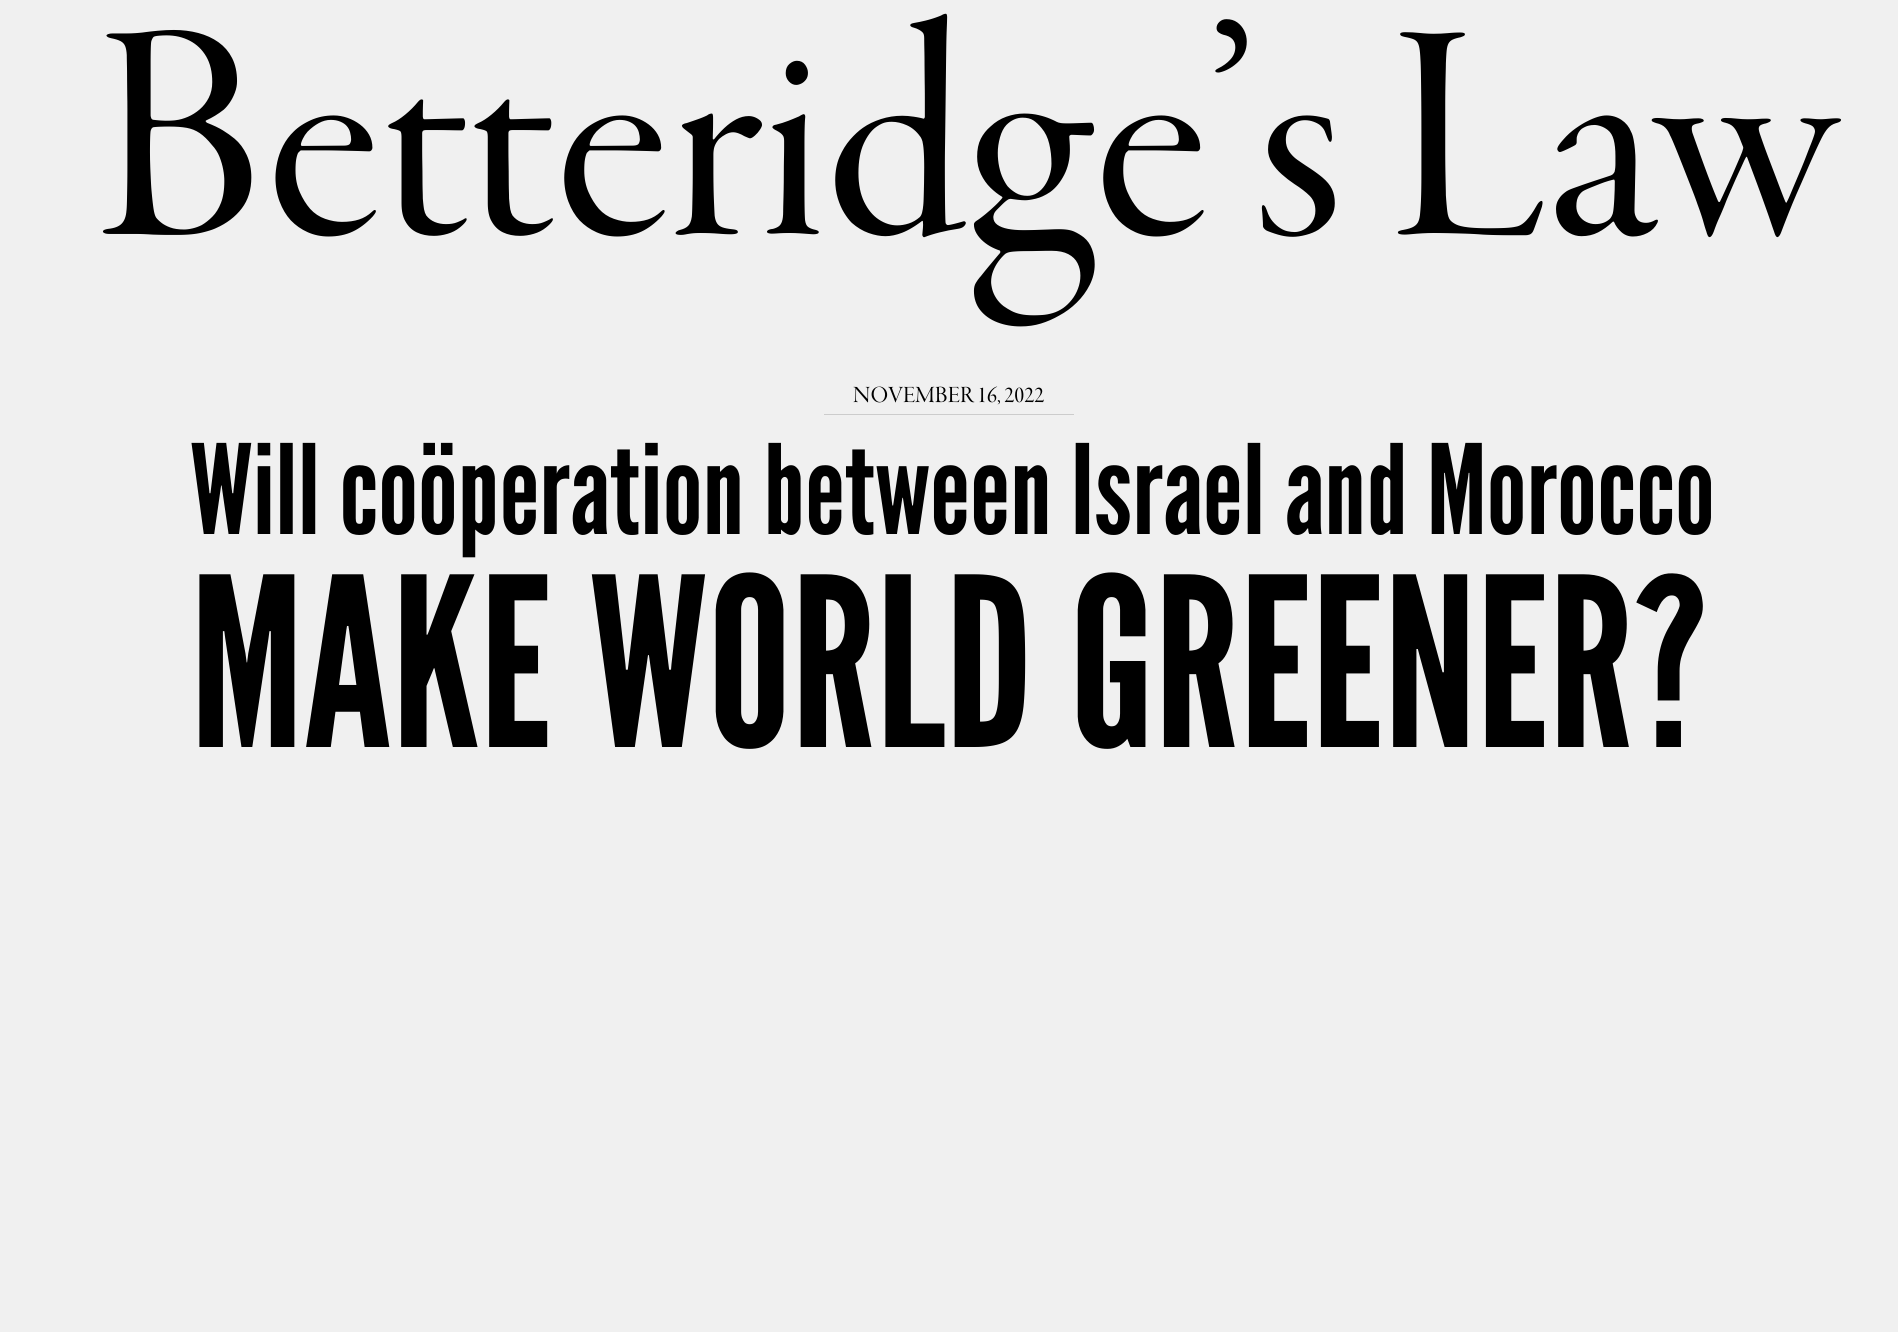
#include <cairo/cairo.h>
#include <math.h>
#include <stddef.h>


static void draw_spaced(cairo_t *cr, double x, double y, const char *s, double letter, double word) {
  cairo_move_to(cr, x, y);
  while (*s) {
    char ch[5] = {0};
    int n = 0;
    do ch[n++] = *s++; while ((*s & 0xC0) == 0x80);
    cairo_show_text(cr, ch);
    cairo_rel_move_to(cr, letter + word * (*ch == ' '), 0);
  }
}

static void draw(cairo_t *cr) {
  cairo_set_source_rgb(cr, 240 / 255.0, 240 / 255.0, 240 / 255.0);
  cairo_paint(cr);
  cairo_set_source_rgb(cr, 204 / 255.0, 204 / 255.0, 204 / 255.0);
  cairo_rectangle(cr, 824, 414, 250, 1);
  cairo_fill(cr);
  cairo_select_font_face(cr, "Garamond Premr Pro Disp", CAIRO_FONT_SLANT_NORMAL, CAIRO_FONT_WEIGHT_NORMAL);
  cairo_set_font_size(cr, 317.75);
  cairo_set_source_rgb(cr, 0, 0, 0);
  draw_spaced(cr, 95, 233, "Betteridge’s Law", 0, -2);
  cairo_set_font_size(cr, 24);
  cairo_move_to(cr, 853, 402);
  cairo_show_text(cr, "NOVEMBER 16, 2022");
  cairo_select_font_face(cr, "League Gothic", CAIRO_FONT_SLANT_NORMAL, CAIRO_FONT_WEIGHT_NORMAL);
  cairo_set_font_size(cr, 124);
  cairo_move_to(cr, 190, 534);
  cairo_show_text(cr, "Will coöperation between Israel and Morocco");
  cairo_set_font_size(cr, 235);
  draw_spaced(cr, 190, 747, "MAKE WORLD GREENER?", 0, 1);
}

int main(void) {
  cairo_surface_t *surface = cairo_image_surface_create(CAIRO_FORMAT_RGB24, 1898, 1332);
  cairo_t *cr = cairo_create(surface);
  cairo_font_options_t *options = cairo_font_options_create();
  cairo_font_options_set_hint_metrics(options, CAIRO_HINT_METRICS_OFF);
  cairo_font_options_set_hint_style(options, CAIRO_HINT_STYLE_NONE);
  cairo_set_font_options(cr, options);
  cairo_set_miter_limit(cr, 4);
  draw(cr);
  cairo_surface_write_to_png(surface, "out.png");
  cairo_font_options_destroy(options);
  cairo_destroy(cr);
  cairo_surface_destroy(surface);
  return 0;
}
